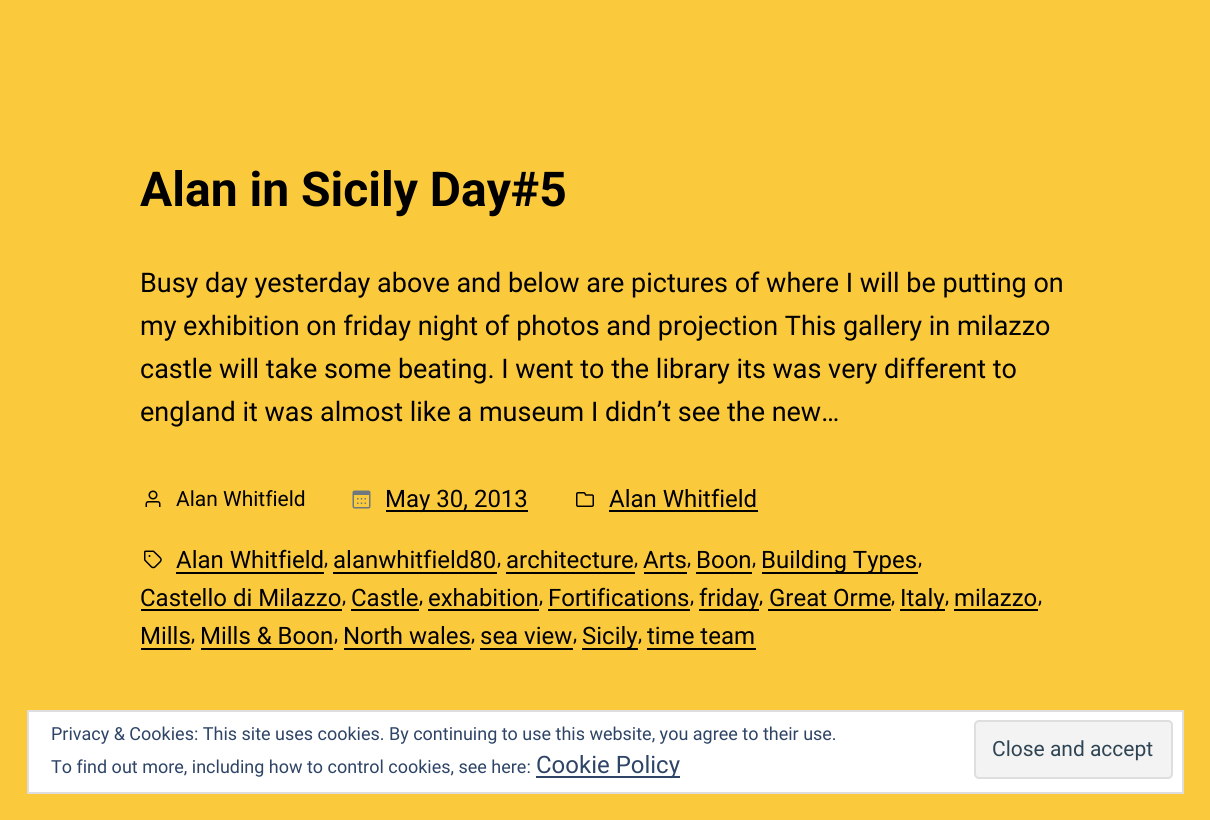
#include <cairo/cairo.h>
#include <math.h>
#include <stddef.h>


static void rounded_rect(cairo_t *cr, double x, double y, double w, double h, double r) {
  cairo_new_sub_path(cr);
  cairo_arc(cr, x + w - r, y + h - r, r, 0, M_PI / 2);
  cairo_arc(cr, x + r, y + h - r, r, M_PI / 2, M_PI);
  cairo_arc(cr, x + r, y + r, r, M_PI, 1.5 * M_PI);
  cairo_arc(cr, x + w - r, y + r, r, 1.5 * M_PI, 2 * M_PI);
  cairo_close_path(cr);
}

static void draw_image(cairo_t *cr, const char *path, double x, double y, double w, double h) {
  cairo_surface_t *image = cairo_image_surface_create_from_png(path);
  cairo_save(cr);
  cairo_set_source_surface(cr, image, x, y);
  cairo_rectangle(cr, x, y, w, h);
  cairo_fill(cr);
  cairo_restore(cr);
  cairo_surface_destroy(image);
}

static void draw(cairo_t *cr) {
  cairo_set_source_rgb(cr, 251 / 255.0, 201 / 255.0, 60 / 255.0);
  cairo_paint(cr);
  draw_image(cr, "images/1.png", 145, 490, 16, 17);
  draw_image(cr, "images/2.png", 352, 490, 19, 19);
  cairo_set_source_rgb(cr, 0, 0, 0);
  cairo_rectangle(cr, 386, 510, 142, 2);
  cairo_fill(cr);
  draw_image(cr, "images/3.png", 576, 492, 18, 15);
  cairo_rectangle(cr, 609, 510, 149, 2);
  cairo_fill(cr);
  draw_image(cr, "images/4.png", 144, 550, 18, 19);
  cairo_rectangle(cr, 176, 572, 148, 2);
  cairo_fill(cr);
  cairo_rectangle(cr, 333, 572, 164, 2);
  cairo_fill(cr);
  cairo_rectangle(cr, 506, 572, 129, 2);
  cairo_fill(cr);
  cairo_rectangle(cr, 644, 572, 43, 2);
  cairo_fill(cr);
  cairo_rectangle(cr, 696, 572, 56, 2);
  cairo_fill(cr);
  cairo_rectangle(cr, 762, 572, 156, 2);
  cairo_fill(cr);
  cairo_rectangle(cr, 141, 609, 201, 2);
  cairo_fill(cr);
  cairo_rectangle(cr, 351, 609, 68, 2);
  cairo_fill(cr);
  cairo_rectangle(cr, 428, 609, 111, 2);
  cairo_fill(cr);
  cairo_rectangle(cr, 548, 609, 142, 2);
  cairo_fill(cr);
  cairo_rectangle(cr, 699, 609, 60, 2);
  cairo_fill(cr);
  cairo_rectangle(cr, 768, 609, 123, 2);
  cairo_fill(cr);
  cairo_rectangle(cr, 900, 609, 45, 2);
  cairo_fill(cr);
  cairo_rectangle(cr, 954, 609, 84, 2);
  cairo_fill(cr);
  cairo_rectangle(cr, 141, 648, 50, 2);
  cairo_fill(cr);
  cairo_rectangle(cr, 201, 648, 132, 2);
  cairo_fill(cr);
  cairo_rectangle(cr, 344, 648, 127, 2);
  cairo_fill(cr);
  cairo_rectangle(cr, 480, 648, 93, 2);
  cairo_fill(cr);
  cairo_rectangle(cr, 582, 648, 56, 2);
  cairo_fill(cr);
  cairo_rectangle(cr, 647, 648, 109, 2);
  cairo_fill(cr);
  cairo_set_source_rgb(cr, 1, 1, 1);
  cairo_rectangle(cr, 28, 711, 1155, 82);
  cairo_fill_preserve(cr);
  cairo_set_source_rgb(cr, 222 / 255.0, 222 / 255.0, 222 / 255.0);
  cairo_stroke(cr);
  cairo_set_source_rgb(cr, 243 / 255.0, 243 / 255.0, 243 / 255.0);
  rounded_rect(cr, 975, 721, 197, 57, 4);
  cairo_fill_preserve(cr);
  cairo_set_source_rgb(cr, 222 / 255.0, 222 / 255.0, 222 / 255.0);
  cairo_stroke(cr);
  cairo_set_source_rgb(cr, 46 / 255.0, 68 / 255.0, 103 / 255.0);
  cairo_rectangle(cr, 536, 776, 144, 2);
  cairo_fill(cr);
  cairo_select_font_face(cr, "Roboto", CAIRO_FONT_SLANT_NORMAL, CAIRO_FONT_WEIGHT_BOLD);
  cairo_set_font_size(cr, 48);
  cairo_set_source_rgb(cr, 0, 0, 0);
  cairo_move_to(cr, 140, 206);
  cairo_show_text(cr, "Alan in Sicily Day#5");
  cairo_select_font_face(cr, "Roboto", CAIRO_FONT_SLANT_NORMAL, CAIRO_FONT_WEIGHT_NORMAL);
  cairo_set_font_size(cr, 27);
  cairo_move_to(cr, 140, 292);
  cairo_show_text(cr, "Busy day yesterday above and below are pictures of where I will be putting on");
  cairo_move_to(cr, 140, 335);
  cairo_show_text(cr, "my exhibition on friday night of photos and projection This gallery in milazzo");
  cairo_move_to(cr, 140, 378);
  cairo_show_text(cr, "castle will take some beating. I went to the library its was very different to");
  cairo_move_to(cr, 140, 421);
  cairo_show_text(cr, "england it was almost like a museum I didn’t see the new…");
  cairo_set_font_size(cr, 21);
  cairo_move_to(cr, 176, 506);
  cairo_show_text(cr, "Alan Whitfield");
  cairo_set_font_size(cr, 24);
  cairo_move_to(cr, 385, 507);
  cairo_show_text(cr, "May 30, 2013");
  cairo_move_to(cr, 609, 507);
  cairo_show_text(cr, "Alan Whitfield");
  cairo_move_to(cr, 176, 568);
  cairo_show_text(cr, "Alan Whitfield");
  cairo_set_font_size(cr, 21);
  cairo_move_to(cr, 324, 565);
  cairo_show_text(cr, ",");
  cairo_set_font_size(cr, 24);
  cairo_move_to(cr, 333, 568);
  cairo_show_text(cr, "alanwhitfield80");
  cairo_set_font_size(cr, 21);
  cairo_move_to(cr, 497, 565);
  cairo_show_text(cr, ",");
  cairo_set_font_size(cr, 24);
  cairo_move_to(cr, 506, 568);
  cairo_show_text(cr, "architecture");
  cairo_set_font_size(cr, 21);
  cairo_move_to(cr, 634, 565);
  cairo_show_text(cr, ",");
  cairo_set_font_size(cr, 24);
  cairo_move_to(cr, 643, 568);
  cairo_show_text(cr, "Arts");
  cairo_set_font_size(cr, 21);
  cairo_move_to(cr, 687, 565);
  cairo_show_text(cr, ",");
  cairo_set_font_size(cr, 24);
  cairo_move_to(cr, 696, 568);
  cairo_show_text(cr, "Boon");
  cairo_set_font_size(cr, 21);
  cairo_move_to(cr, 752, 565);
  cairo_show_text(cr, ",");
  cairo_set_font_size(cr, 24);
  cairo_move_to(cr, 761, 568);
  cairo_show_text(cr, "Building Types");
  cairo_set_font_size(cr, 21);
  cairo_move_to(cr, 918, 565);
  cairo_show_text(cr, ",");
  cairo_set_font_size(cr, 24);
  cairo_move_to(cr, 140, 606);
  cairo_show_text(cr, "Castello di Milazzo");
  cairo_set_font_size(cr, 21);
  cairo_move_to(cr, 342, 603);
  cairo_show_text(cr, ",");
  cairo_set_font_size(cr, 24);
  cairo_move_to(cr, 351, 606);
  cairo_show_text(cr, "Castle");
  cairo_set_font_size(cr, 21);
  cairo_move_to(cr, 419, 603);
  cairo_show_text(cr, ",");
  cairo_set_font_size(cr, 24);
  cairo_move_to(cr, 428, 606);
  cairo_show_text(cr, "exhabition");
  cairo_set_font_size(cr, 21);
  cairo_move_to(cr, 539, 603);
  cairo_show_text(cr, ",");
  cairo_set_font_size(cr, 24);
  cairo_move_to(cr, 548, 606);
  cairo_show_text(cr, "Fortifications");
  cairo_set_font_size(cr, 21);
  cairo_move_to(cr, 690, 603);
  cairo_show_text(cr, ",");
  cairo_set_font_size(cr, 24);
  cairo_move_to(cr, 699, 606);
  cairo_show_text(cr, "friday");
  cairo_set_font_size(cr, 21);
  cairo_move_to(cr, 759, 603);
  cairo_show_text(cr, ",");
  cairo_set_font_size(cr, 24);
  cairo_move_to(cr, 769, 606);
  cairo_show_text(cr, "Great Orme");
  cairo_set_font_size(cr, 21);
  cairo_move_to(cr, 891, 603);
  cairo_show_text(cr, ",");
  cairo_set_font_size(cr, 24);
  cairo_move_to(cr, 900, 606);
  cairo_show_text(cr, "Italy");
  cairo_set_font_size(cr, 21);
  cairo_move_to(cr, 945, 603);
  cairo_show_text(cr, ",");
  cairo_set_font_size(cr, 24);
  cairo_move_to(cr, 954, 606);
  cairo_show_text(cr, "milazzo");
  cairo_set_font_size(cr, 21);
  cairo_move_to(cr, 1038, 603);
  cairo_show_text(cr, ",");
  cairo_set_font_size(cr, 24);
  cairo_move_to(cr, 140, 644);
  cairo_show_text(cr, "Mills");
  cairo_set_font_size(cr, 21);
  cairo_move_to(cr, 191, 641);
  cairo_show_text(cr, ",");
  cairo_set_font_size(cr, 24);
  cairo_move_to(cr, 200, 644);
  cairo_show_text(cr, "Mills & Boon");
  cairo_set_font_size(cr, 21);
  cairo_move_to(cr, 334, 641);
  cairo_show_text(cr, ",");
  cairo_set_font_size(cr, 24);
  cairo_move_to(cr, 343, 644);
  cairo_show_text(cr, "North wales");
  cairo_set_font_size(cr, 21);
  cairo_move_to(cr, 471, 641);
  cairo_show_text(cr, ",");
  cairo_set_font_size(cr, 24);
  cairo_move_to(cr, 480, 644);
  cairo_show_text(cr, "sea view");
  cairo_set_font_size(cr, 21);
  cairo_move_to(cr, 573, 641);
  cairo_show_text(cr, ",");
  cairo_set_font_size(cr, 24);
  cairo_move_to(cr, 582, 644);
  cairo_show_text(cr, "Sicily");
  cairo_set_font_size(cr, 21);
  cairo_move_to(cr, 638, 641);
  cairo_show_text(cr, ",");
  cairo_set_font_size(cr, 24);
  cairo_move_to(cr, 647, 644);
  cairo_show_text(cr, "time team");
  cairo_set_font_size(cr, 18);
  cairo_set_source_rgb(cr, 46 / 255.0, 68 / 255.0, 103 / 255.0);
  cairo_move_to(cr, 51, 740);
  cairo_show_text(cr, "Privacy & Cookies: This site uses cookies. By continuing to use this website, you agree to their use.");
  cairo_set_font_size(cr, 21);
  cairo_set_source_rgb(cr, 46 / 255.0, 68 / 255.0, 83 / 255.0);
  cairo_move_to(cr, 992, 756);
  cairo_show_text(cr, "Close and accept");
  cairo_set_font_size(cr, 18);
  cairo_set_source_rgb(cr, 46 / 255.0, 68 / 255.0, 103 / 255.0);
  cairo_move_to(cr, 51, 773);
  cairo_show_text(cr, "To find out more, including how to control cookies, see here:");
  cairo_set_font_size(cr, 24);
  cairo_move_to(cr, 536, 773);
  cairo_show_text(cr, "Cookie Policy");
}

int main(void) {
  cairo_surface_t *surface = cairo_image_surface_create(CAIRO_FORMAT_RGB24, 1210, 820);
  cairo_t *cr = cairo_create(surface);
  cairo_font_options_t *options = cairo_font_options_create();
  cairo_font_options_set_hint_metrics(options, CAIRO_HINT_METRICS_OFF);
  cairo_font_options_set_hint_style(options, CAIRO_HINT_STYLE_NONE);
  cairo_set_font_options(cr, options);
  cairo_set_miter_limit(cr, 4);
  draw(cr);
  cairo_surface_write_to_png(surface, "out.png");
  cairo_font_options_destroy(options);
  cairo_destroy(cr);
  cairo_surface_destroy(surface);
  return 0;
}
